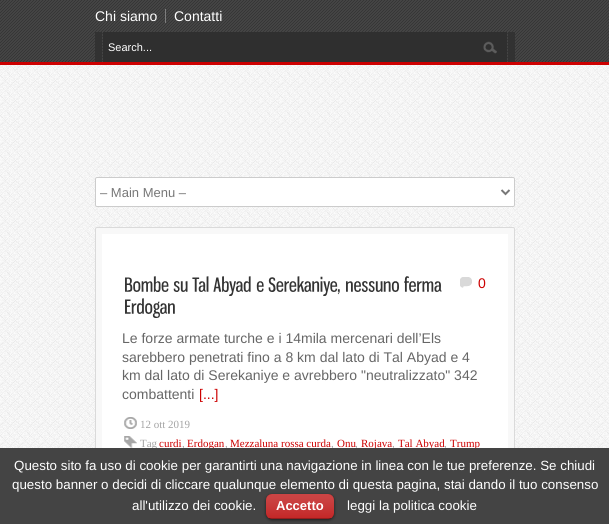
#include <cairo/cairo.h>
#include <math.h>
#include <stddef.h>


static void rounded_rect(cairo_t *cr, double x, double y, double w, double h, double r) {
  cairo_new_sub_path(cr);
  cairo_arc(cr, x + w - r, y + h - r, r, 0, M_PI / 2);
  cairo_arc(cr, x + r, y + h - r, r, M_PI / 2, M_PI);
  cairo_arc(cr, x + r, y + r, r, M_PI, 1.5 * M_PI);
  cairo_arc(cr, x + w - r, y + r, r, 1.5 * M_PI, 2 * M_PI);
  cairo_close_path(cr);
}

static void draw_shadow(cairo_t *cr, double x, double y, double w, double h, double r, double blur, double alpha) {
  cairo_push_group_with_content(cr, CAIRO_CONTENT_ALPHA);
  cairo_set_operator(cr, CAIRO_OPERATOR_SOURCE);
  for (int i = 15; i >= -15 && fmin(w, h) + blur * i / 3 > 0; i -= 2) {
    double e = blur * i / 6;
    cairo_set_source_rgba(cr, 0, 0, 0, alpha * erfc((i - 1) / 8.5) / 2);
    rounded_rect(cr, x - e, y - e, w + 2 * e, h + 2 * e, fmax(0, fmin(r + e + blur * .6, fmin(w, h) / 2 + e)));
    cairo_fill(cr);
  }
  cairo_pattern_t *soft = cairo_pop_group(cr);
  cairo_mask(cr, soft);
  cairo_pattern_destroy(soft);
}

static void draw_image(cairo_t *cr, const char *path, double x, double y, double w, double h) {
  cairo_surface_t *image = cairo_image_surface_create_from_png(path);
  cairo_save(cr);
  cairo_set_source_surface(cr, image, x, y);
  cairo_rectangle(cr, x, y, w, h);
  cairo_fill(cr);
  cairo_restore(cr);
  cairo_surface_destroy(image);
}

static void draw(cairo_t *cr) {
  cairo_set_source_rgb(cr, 1, 1, 1);
  cairo_paint(cr);
  draw_image(cr, "images/1.png", 0, 65, 609, 383);
  cairo_set_source_rgb(cr, 68 / 255.0, 68 / 255.0, 68 / 255.0);
  cairo_rectangle(cr, 0, 0, 609, 62);
  cairo_fill(cr);
  draw_image(cr, "images/2.png", 0, 0, 609, 62);
  cairo_set_source_rgb(cr, 125 / 255.0, 125 / 255.0, 125 / 255.0);
  cairo_rectangle(cr, 165, 9, 1, 14);
  cairo_fill(cr);
  cairo_set_source_rgb(cr, 50 / 255.0, 50 / 255.0, 50 / 255.0);
  cairo_rectangle(cr, 95, 32, 7, 30);
  cairo_fill(cr);
  cairo_set_source_rgb(cr, 47 / 255.0, 47 / 255.0, 47 / 255.0);
  cairo_rectangle(cr, 103, 32, 404, 30);
  cairo_fill(cr);
  draw_image(cr, "images/3.png", 483, 41, 14, 13);
  cairo_set_source_rgb(cr, 50 / 255.0, 50 / 255.0, 50 / 255.0);
  cairo_rectangle(cr, 508, 32, 7, 30);
  cairo_fill(cr);
  cairo_set_source_rgb(cr, 204 / 255.0, 0, 0);
  cairo_rectangle(cr, 0, 62, 609, 3);
  cairo_fill(cr);
  cairo_set_source_rgb(cr, 1, 1, 1);
  rounded_rect(cr, 95.5, 177.5, 419, 29, 1.5);
  cairo_fill_preserve(cr);
  cairo_set_source_rgb(cr, 204 / 255.0, 204 / 255.0, 204 / 255.0);
  cairo_set_line_width(cr, 1);
  cairo_stroke(cr);
  cairo_new_path(cr);
  cairo_move_to(cr, 501.5, 190);
  cairo_line_to(cr, 505.5, 194);
  cairo_line_to(cr, 509.5, 190);
  cairo_set_source_rgb(cr, 119 / 255.0, 119 / 255.0, 119 / 255.0);
  cairo_set_line_width(cr, 2);
  cairo_stroke(cr);
  cairo_set_source_rgb(cr, 248 / 255.0, 248 / 255.0, 248 / 255.0);
  rounded_rect(cr, 95.5, 227.5, 419, 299, 1.5);
  cairo_fill_preserve(cr);
  cairo_set_source_rgb(cr, 218 / 255.0, 218 / 255.0, 218 / 255.0);
  cairo_set_line_width(cr, 1);
  cairo_stroke(cr);
  cairo_set_source_rgb(cr, 1, 1, 1);
  cairo_rectangle(cr, 102, 234, 406, 214);
  cairo_fill(cr);
  draw_image(cr, "images/4.png", 125, 276, 44, 16);
  draw_image(cr, "images/5.png", 173, 281, 15, 11);
  draw_image(cr, "images/6.png", 192, 276, 17, 16);
  draw_image(cr, "images/7.png", 213, 276, 38, 20);
  draw_image(cr, "images/8.png", 256, 281, 8, 11);
  draw_image(cr, "images/9.png", 268, 276, 72, 20);
  draw_image(cr, "images/10.png", 346, 281, 53, 11);
  draw_image(cr, "images/11.png", 404, 276, 38, 16);
  draw_image(cr, "images/12.png", 125, 298, 50, 20);
  draw_image(cr, "images/13.png", 460, 277, 12, 11);
  draw_image(cr, "images/14.png", 124, 417, 13, 12);
  draw_image(cr, "images/15.png", 124, 436, 13, 12);
  cairo_select_font_face(cr, "Liberation Sans", CAIRO_FONT_SLANT_NORMAL, CAIRO_FONT_WEIGHT_NORMAL);
  cairo_set_font_size(cr, 14);
  cairo_move_to(cr, 95, 21);
  cairo_show_text(cr, "Chi siamo");
  cairo_move_to(cr, 174, 21);
  cairo_show_text(cr, "Contatti");
  cairo_set_font_size(cr, 11);
  cairo_move_to(cr, 108, 51);
  cairo_show_text(cr, "Search...");
  cairo_set_font_size(cr, 13);
  cairo_set_source_rgb(cr, 119 / 255.0, 119 / 255.0, 119 / 255.0);
  cairo_move_to(cr, 100, 197);
  cairo_show_text(cr, "– Main Menu –");
  cairo_set_font_size(cr, 14);
  cairo_set_source_rgb(cr, 204 / 255.0, 0, 0);
  cairo_move_to(cr, 478, 288);
  cairo_show_text(cr, "0");
  cairo_set_source_rgb(cr, 102 / 255.0, 102 / 255.0, 102 / 255.0);
  cairo_move_to(cr, 122, 343);
  cairo_show_text(cr, "Le forze armate turche e i 14mila mercenari dell’Els");
  cairo_move_to(cr, 122, 362);
  cairo_show_text(cr, "sarebbero penetrati fino a 8 km dal lato di Tal Abyad e 4");
  cairo_move_to(cr, 122, 380);
  cairo_show_text(cr, "km dal lato di Serekaniye e avrebbero \"neutralizzato\" 342");
  cairo_move_to(cr, 122, 399);
  cairo_show_text(cr, "combattenti");
  cairo_set_source_rgb(cr, 204 / 255.0, 0, 0);
  cairo_move_to(cr, 199, 399);
  cairo_show_text(cr, "[...]");
  cairo_select_font_face(cr, "Liberation Serif", CAIRO_FONT_SLANT_NORMAL, CAIRO_FONT_WEIGHT_NORMAL);
  cairo_set_font_size(cr, 11);
  cairo_set_source_rgb(cr, 164 / 255.0, 164 / 255.0, 164 / 255.0);
  cairo_move_to(cr, 140, 428);
  cairo_show_text(cr, "12 ott 2019");
  cairo_move_to(cr, 140, 447);
  cairo_show_text(cr, "Tag");
  cairo_set_source_rgb(cr, 204 / 255.0, 0, 0);
  cairo_move_to(cr, 159, 447);
  cairo_show_text(cr, "curdi");
  cairo_set_source_rgb(cr, 164 / 255.0, 164 / 255.0, 164 / 255.0);
  cairo_move_to(cr, 182, 447);
  cairo_show_text(cr, ",");
  cairo_set_source_rgb(cr, 204 / 255.0, 0, 0);
  cairo_move_to(cr, 187, 447);
  cairo_show_text(cr, "Erdogan");
  cairo_set_source_rgb(cr, 164 / 255.0, 164 / 255.0, 164 / 255.0);
  cairo_move_to(cr, 225, 447);
  cairo_show_text(cr, ",");
  cairo_set_source_rgb(cr, 204 / 255.0, 0, 0);
  cairo_move_to(cr, 230, 447);
  cairo_show_text(cr, "Mezzaluna rossa curda");
  cairo_set_source_rgb(cr, 164 / 255.0, 164 / 255.0, 164 / 255.0);
  cairo_move_to(cr, 331, 447);
  cairo_show_text(cr, ",");
  cairo_set_source_rgb(cr, 204 / 255.0, 0, 0);
  cairo_move_to(cr, 337, 447);
  cairo_show_text(cr, "Onu");
  cairo_set_source_rgb(cr, 164 / 255.0, 164 / 255.0, 164 / 255.0);
  cairo_move_to(cr, 355, 447);
  cairo_show_text(cr, ",");
  cairo_set_source_rgb(cr, 204 / 255.0, 0, 0);
  cairo_move_to(cr, 361, 447);
  cairo_show_text(cr, "Rojava");
  cairo_set_source_rgb(cr, 164 / 255.0, 164 / 255.0, 164 / 255.0);
  cairo_move_to(cr, 392, 447);
  cairo_show_text(cr, ",");
  cairo_set_source_rgb(cr, 204 / 255.0, 0, 0);
  cairo_move_to(cr, 398, 447);
  cairo_show_text(cr, "Tal Abyad");
  cairo_set_source_rgb(cr, 164 / 255.0, 164 / 255.0, 164 / 255.0);
  cairo_move_to(cr, 444, 447);
  cairo_show_text(cr, ",");
  cairo_set_source_rgb(cr, 204 / 255.0, 0, 0);
  cairo_move_to(cr, 450, 447);
  cairo_show_text(cr, "Trump");
  cairo_set_source_rgb(cr, 68 / 255.0, 68 / 255.0, 68 / 255.0);
  cairo_rectangle(cr, 0, 448, 609, 76);
  cairo_fill(cr);
  cairo_select_font_face(cr, "Liberation Sans", CAIRO_FONT_SLANT_NORMAL, CAIRO_FONT_WEIGHT_NORMAL);
  cairo_set_font_size(cr, 13.35);
  cairo_set_source_rgb(cr, 1, 1, 1);
  cairo_move_to(cr, 14, 470);
  cairo_show_text(cr, "Questo sito fa uso di cookie per garantirti una navigazione in linea con le tue preferenze. Se chiudi");
  cairo_move_to(cr, 12, 489);
  cairo_show_text(cr, "questo banner o decidi di cliccare qualunque elemento di questa pagina, stai dando il tuo consenso");
  cairo_move_to(cr, 132, 510);
  cairo_show_text(cr, "all'utilizzo dei cookie.");
  cairo_set_source_rgb(cr, 0, 0, 0);
  draw_shadow(cr, 266, 495, 68, 25, 6, 1.5, 0.6);
  cairo_set_source_rgb(cr, 186 / 255.0, 6 / 255.0, 6 / 255.0);
  rounded_rect(cr, 266, 494, 68, 25, 6);
  cairo_fill(cr);
  draw_image(cr, "images/16.png", 266, 494, 68, 25);
  cairo_set_source_rgba(cr, 0, 0, 0, 0.25);
  cairo_rectangle(cr, 269, 518, 62, 1);
  cairo_fill(cr);
  cairo_select_font_face(cr, "Liberation Sans", CAIRO_FONT_SLANT_NORMAL, CAIRO_FONT_WEIGHT_BOLD);
  cairo_set_font_size(cr, 13);
  cairo_set_source_rgb(cr, 1, 1, 1);
  cairo_move_to(cr, 276, 510);
  cairo_show_text(cr, "Accetto");
  cairo_select_font_face(cr, "Liberation Sans", CAIRO_FONT_SLANT_NORMAL, CAIRO_FONT_WEIGHT_NORMAL);
  cairo_set_font_size(cr, 13.35);
  cairo_move_to(cr, 347, 510);
  cairo_show_text(cr, "leggi la politica cookie");
}

int main(void) {
  cairo_surface_t *surface = cairo_image_surface_create(CAIRO_FORMAT_RGB24, 609, 524);
  cairo_t *cr = cairo_create(surface);
  cairo_font_options_t *options = cairo_font_options_create();
  cairo_font_options_set_hint_metrics(options, CAIRO_HINT_METRICS_OFF);
  cairo_font_options_set_hint_style(options, CAIRO_HINT_STYLE_NONE);
  cairo_set_font_options(cr, options);
  cairo_set_miter_limit(cr, 4);
  draw(cr);
  cairo_surface_write_to_png(surface, "out.png");
  cairo_font_options_destroy(options);
  cairo_destroy(cr);
  cairo_surface_destroy(surface);
  return 0;
}
